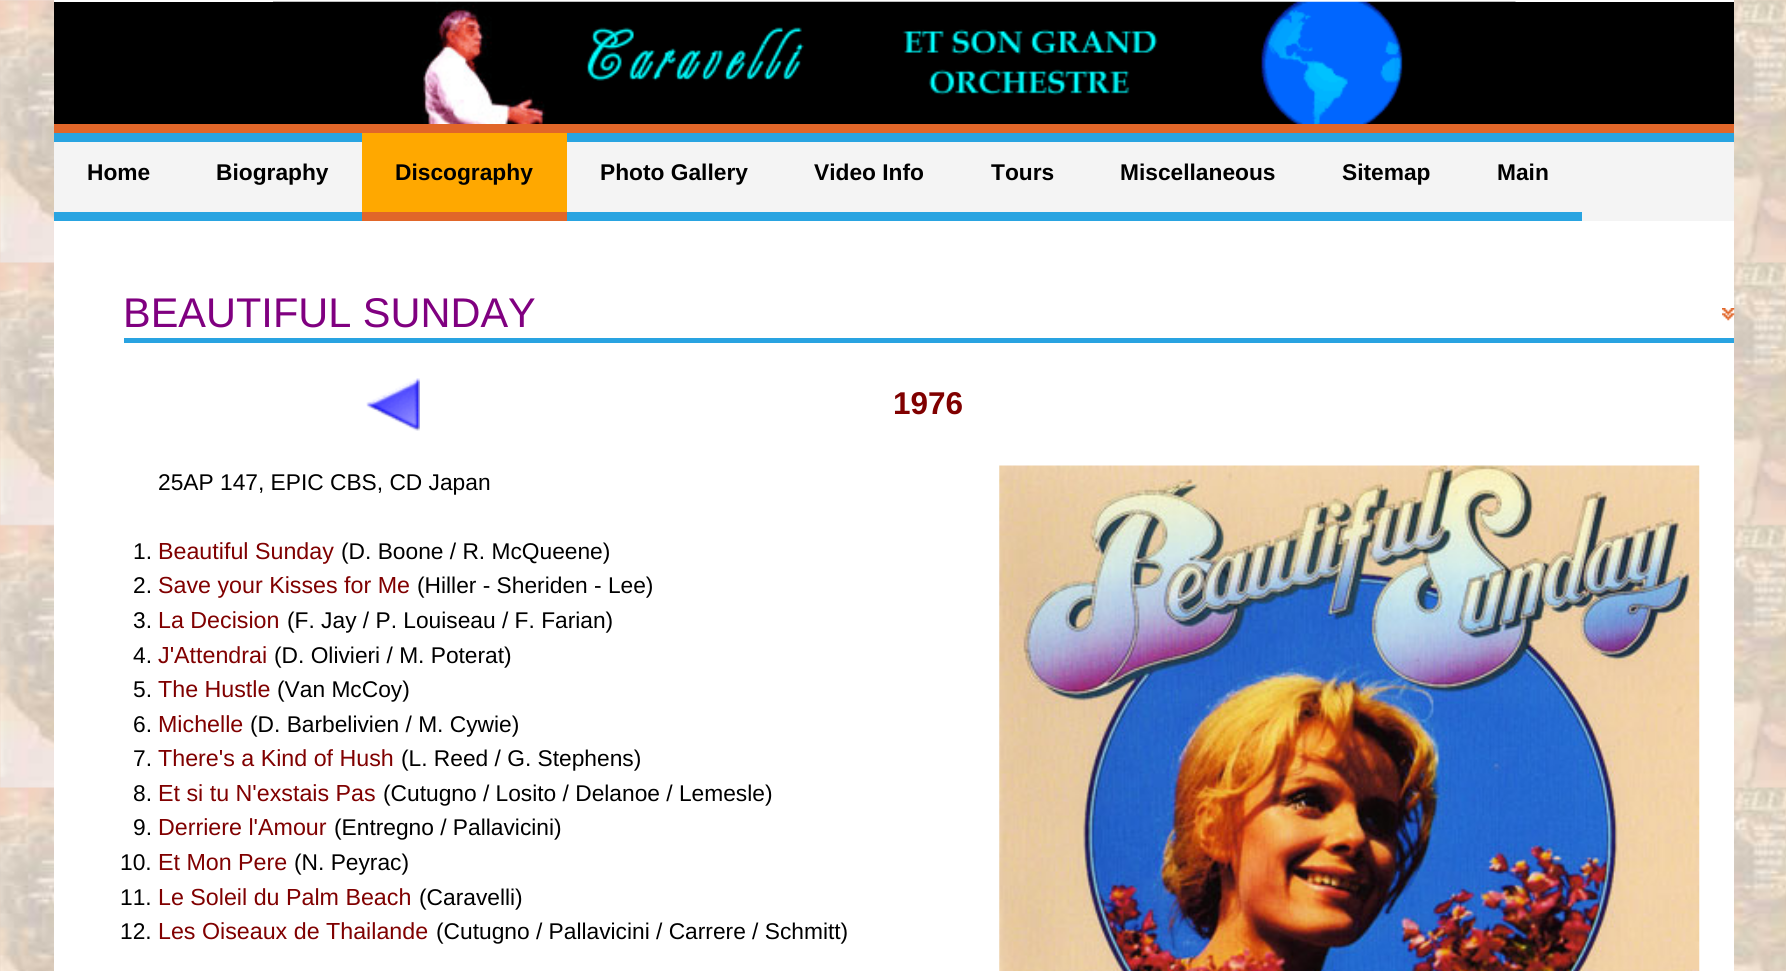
#include <cairo/cairo.h>
#include <math.h>
#include <stddef.h>


static void draw_image(cairo_t *cr, const char *path, double x, double y, double w, double h) {
  cairo_surface_t *image = cairo_image_surface_create_from_png(path);
  cairo_save(cr);
  cairo_set_source_surface(cr, image, x, y);
  cairo_rectangle(cr, x, y, w, h);
  cairo_fill(cr);
  cairo_restore(cr);
  cairo_surface_destroy(image);
}

static void draw(cairo_t *cr) {
  cairo_set_source_rgb(cr, 1, 1, 1);
  cairo_paint(cr);
  draw_image(cr, "images/1.png", 0, 0, 1786, 971);
  cairo_set_source_rgb(cr, 1, 1, 1);
  cairo_rectangle(cr, 54, 0, 1680, 971);
  cairo_fill(cr);
  cairo_set_source_rgb(cr, 0, 0, 0);
  cairo_rectangle(cr, 54, 2, 1680, 122);
  cairo_fill(cr);
  draw_image(cr, "images/2.png", 273, 1, 1243, 123);
  cairo_set_source_rgb(cr, 225 / 255.0, 102 / 255.0, 41 / 255.0);
  cairo_rectangle(cr, 54, 124, 1680, 9);
  cairo_fill(cr);
  cairo_set_source_rgb(cr, 244 / 255.0, 244 / 255.0, 244 / 255.0);
  cairo_rectangle(cr, 54, 142, 1680, 79);
  cairo_fill(cr);
  cairo_set_source_rgb(cr, 41 / 255.0, 164 / 255.0, 225 / 255.0);
  cairo_rectangle(cr, 54, 133, 1680, 9);
  cairo_fill(cr);
  cairo_rectangle(cr, 54, 212, 308, 9);
  cairo_fill(cr);
  cairo_set_source_rgb(cr, 1, 168 / 255.0, 0);
  cairo_rectangle(cr, 362, 133, 205, 79);
  cairo_fill(cr);
  cairo_set_source_rgb(cr, 225 / 255.0, 102 / 255.0, 41 / 255.0);
  cairo_rectangle(cr, 362, 212, 205, 9);
  cairo_fill(cr);
  cairo_set_source_rgb(cr, 41 / 255.0, 164 / 255.0, 225 / 255.0);
  cairo_rectangle(cr, 567, 212, 1015, 9);
  cairo_fill(cr);
  draw_image(cr, "images/3.png", 1722, 308, 13, 13);
  cairo_set_source_rgb(cr, 41 / 255.0, 163 / 255.0, 225 / 255.0);
  cairo_rectangle(cr, 124, 338, 1610, 5);
  cairo_fill(cr);
  draw_image(cr, "images/4.png", 366, 378, 54, 53);
  draw_image(cr, "images/5.png", 999, 465, 701, 506);
  cairo_select_font_face(cr, "Liberation Sans", CAIRO_FONT_SLANT_NORMAL, CAIRO_FONT_WEIGHT_BOLD);
  cairo_set_font_size(cr, 22.75);
  cairo_set_source_rgb(cr, 0, 0, 0);
  cairo_move_to(cr, 87, 180);
  cairo_show_text(cr, "Home");
  cairo_move_to(cr, 216, 180);
  cairo_show_text(cr, "Biography");
  cairo_move_to(cr, 395, 180);
  cairo_show_text(cr, "Discography");
  cairo_move_to(cr, 600, 180);
  cairo_show_text(cr, "Photo Gallery");
  cairo_move_to(cr, 814, 180);
  cairo_show_text(cr, "Video Info");
  cairo_move_to(cr, 991, 180);
  cairo_show_text(cr, "Tours");
  cairo_move_to(cr, 1120, 180);
  cairo_show_text(cr, "Miscellaneous");
  cairo_move_to(cr, 1342, 180);
  cairo_show_text(cr, "Sitemap");
  cairo_move_to(cr, 1497, 180);
  cairo_show_text(cr, "Main");
  cairo_select_font_face(cr, "Liberation Sans", CAIRO_FONT_SLANT_NORMAL, CAIRO_FONT_WEIGHT_NORMAL);
  cairo_set_font_size(cr, 41.5);
  cairo_set_source_rgb(cr, 128 / 255.0, 0, 128 / 255.0);
  cairo_move_to(cr, 123, 327);
  cairo_show_text(cr, "BEAUTIFUL SUNDAY");
  cairo_select_font_face(cr, "Liberation Sans", CAIRO_FONT_SLANT_NORMAL, CAIRO_FONT_WEIGHT_BOLD);
  cairo_set_font_size(cr, 31.5);
  cairo_set_source_rgb(cr, 128 / 255.0, 0, 0);
  cairo_move_to(cr, 893, 414);
  cairo_show_text(cr, "1976");
  cairo_select_font_face(cr, "Liberation Sans", CAIRO_FONT_SLANT_NORMAL, CAIRO_FONT_WEIGHT_NORMAL);
  cairo_set_font_size(cr, 22.75);
  cairo_set_source_rgb(cr, 0, 0, 0);
  cairo_move_to(cr, 158, 490);
  cairo_show_text(cr, "25AP 147, EPIC CBS, CD Japan");
  cairo_move_to(cr, 133, 559);
  cairo_show_text(cr, "1.");
  cairo_set_font_size(cr, 23.25);
  cairo_set_source_rgb(cr, 128 / 255.0, 0, 0);
  cairo_move_to(cr, 158, 559);
  cairo_show_text(cr, "Beautiful Sunday");
  cairo_set_font_size(cr, 22.75);
  cairo_set_source_rgb(cr, 0, 0, 0);
  cairo_move_to(cr, 341, 559);
  cairo_show_text(cr, "(D. Boone / R. McQueene)");
  cairo_move_to(cr, 133, 593);
  cairo_show_text(cr, "2.");
  cairo_set_font_size(cr, 23.25);
  cairo_set_source_rgb(cr, 128 / 255.0, 0, 0);
  cairo_move_to(cr, 158, 593);
  cairo_show_text(cr, "Save your Kisses for Me");
  cairo_set_font_size(cr, 22.75);
  cairo_set_source_rgb(cr, 0, 0, 0);
  cairo_move_to(cr, 417, 593);
  cairo_show_text(cr, "(Hiller - Sheriden - Lee)");
  cairo_move_to(cr, 133, 628);
  cairo_show_text(cr, "3.");
  cairo_set_font_size(cr, 23.25);
  cairo_set_source_rgb(cr, 128 / 255.0, 0, 0);
  cairo_move_to(cr, 158, 628);
  cairo_show_text(cr, "La Decision");
  cairo_set_font_size(cr, 22.75);
  cairo_set_source_rgb(cr, 0, 0, 0);
  cairo_move_to(cr, 287, 628);
  cairo_show_text(cr, "(F. Jay / P. Louiseau / F. Farian)");
  cairo_move_to(cr, 133, 663);
  cairo_show_text(cr, "4.");
  cairo_set_font_size(cr, 23.25);
  cairo_set_source_rgb(cr, 128 / 255.0, 0, 0);
  cairo_move_to(cr, 158, 663);
  cairo_show_text(cr, "J'Attendrai");
  cairo_set_font_size(cr, 22.75);
  cairo_set_source_rgb(cr, 0, 0, 0);
  cairo_move_to(cr, 274, 663);
  cairo_show_text(cr, "(D. Olivieri / M. Poterat)");
  cairo_move_to(cr, 133, 697);
  cairo_show_text(cr, "5.");
  cairo_set_font_size(cr, 23.25);
  cairo_set_source_rgb(cr, 128 / 255.0, 0, 0);
  cairo_move_to(cr, 158, 697);
  cairo_show_text(cr, "The Hustle");
  cairo_set_font_size(cr, 22.75);
  cairo_set_source_rgb(cr, 0, 0, 0);
  cairo_move_to(cr, 277, 697);
  cairo_show_text(cr, "(Van McCoy)");
  cairo_move_to(cr, 133, 732);
  cairo_show_text(cr, "6.");
  cairo_set_font_size(cr, 23.25);
  cairo_set_source_rgb(cr, 128 / 255.0, 0, 0);
  cairo_move_to(cr, 158, 732);
  cairo_show_text(cr, "Michelle");
  cairo_set_font_size(cr, 22.75);
  cairo_set_source_rgb(cr, 0, 0, 0);
  cairo_move_to(cr, 250, 732);
  cairo_show_text(cr, "(D. Barbelivien / M. Cywie)");
  cairo_move_to(cr, 133, 766);
  cairo_show_text(cr, "7.");
  cairo_set_font_size(cr, 23.25);
  cairo_set_source_rgb(cr, 128 / 255.0, 0, 0);
  cairo_move_to(cr, 158, 766);
  cairo_show_text(cr, "There's a Kind of Hush");
  cairo_set_font_size(cr, 22.75);
  cairo_set_source_rgb(cr, 0, 0, 0);
  cairo_move_to(cr, 401, 766);
  cairo_show_text(cr, "(L. Reed / G. Stephens)");
  cairo_move_to(cr, 133, 801);
  cairo_show_text(cr, "8.");
  cairo_set_font_size(cr, 23.25);
  cairo_set_source_rgb(cr, 128 / 255.0, 0, 0);
  cairo_move_to(cr, 158, 801);
  cairo_show_text(cr, "Et si tu N'exstais Pas");
  cairo_set_font_size(cr, 22.75);
  cairo_set_source_rgb(cr, 0, 0, 0);
  cairo_move_to(cr, 383, 801);
  cairo_show_text(cr, "(Cutugno / Losito / Delanoe / Lemesle)");
  cairo_move_to(cr, 133, 835);
  cairo_show_text(cr, "9.");
  cairo_set_font_size(cr, 23.25);
  cairo_set_source_rgb(cr, 128 / 255.0, 0, 0);
  cairo_move_to(cr, 158, 835);
  cairo_show_text(cr, "Derriere l'Amour");
  cairo_set_font_size(cr, 22.75);
  cairo_set_source_rgb(cr, 0, 0, 0);
  cairo_move_to(cr, 334, 835);
  cairo_show_text(cr, "(Entregno / Pallavicini)");
  cairo_move_to(cr, 120, 870);
  cairo_show_text(cr, "10.");
  cairo_set_font_size(cr, 23.25);
  cairo_set_source_rgb(cr, 128 / 255.0, 0, 0);
  cairo_move_to(cr, 158, 870);
  cairo_show_text(cr, "Et Mon Pere");
  cairo_set_font_size(cr, 22.75);
  cairo_set_source_rgb(cr, 0, 0, 0);
  cairo_move_to(cr, 294, 870);
  cairo_show_text(cr, "(N. Peyrac)");
  cairo_move_to(cr, 120, 905);
  cairo_show_text(cr, "11.");
  cairo_set_font_size(cr, 23.25);
  cairo_set_source_rgb(cr, 128 / 255.0, 0, 0);
  cairo_move_to(cr, 158, 905);
  cairo_show_text(cr, "Le Soleil du Palm Beach");
  cairo_set_font_size(cr, 22.75);
  cairo_set_source_rgb(cr, 0, 0, 0);
  cairo_move_to(cr, 419, 905);
  cairo_show_text(cr, "(Caravelli)");
  cairo_move_to(cr, 120, 939);
  cairo_show_text(cr, "12.");
  cairo_set_font_size(cr, 23.25);
  cairo_set_source_rgb(cr, 128 / 255.0, 0, 0);
  cairo_move_to(cr, 158, 939);
  cairo_show_text(cr, "Les Oiseaux de Thailande");
  cairo_set_font_size(cr, 22.75);
  cairo_set_source_rgb(cr, 0, 0, 0);
  cairo_move_to(cr, 436, 939);
  cairo_show_text(cr, "(Cutugno / Pallavicini / Carrere / Schmitt)");
}

int main(void) {
  cairo_surface_t *surface = cairo_image_surface_create(CAIRO_FORMAT_RGB24, 1786, 971);
  cairo_t *cr = cairo_create(surface);
  cairo_font_options_t *options = cairo_font_options_create();
  cairo_font_options_set_hint_metrics(options, CAIRO_HINT_METRICS_OFF);
  cairo_font_options_set_hint_style(options, CAIRO_HINT_STYLE_NONE);
  cairo_set_font_options(cr, options);
  cairo_set_miter_limit(cr, 4);
  draw(cr);
  cairo_surface_write_to_png(surface, "out.png");
  cairo_font_options_destroy(options);
  cairo_destroy(cr);
  cairo_surface_destroy(surface);
  return 0;
}
